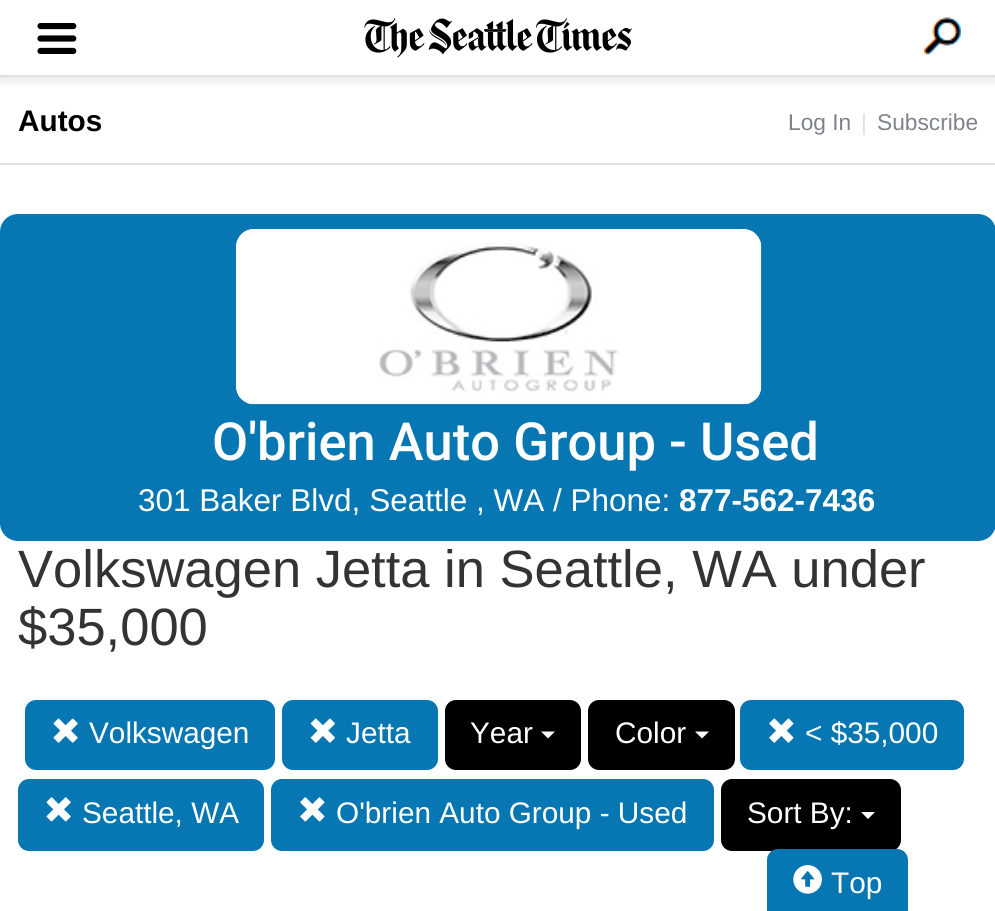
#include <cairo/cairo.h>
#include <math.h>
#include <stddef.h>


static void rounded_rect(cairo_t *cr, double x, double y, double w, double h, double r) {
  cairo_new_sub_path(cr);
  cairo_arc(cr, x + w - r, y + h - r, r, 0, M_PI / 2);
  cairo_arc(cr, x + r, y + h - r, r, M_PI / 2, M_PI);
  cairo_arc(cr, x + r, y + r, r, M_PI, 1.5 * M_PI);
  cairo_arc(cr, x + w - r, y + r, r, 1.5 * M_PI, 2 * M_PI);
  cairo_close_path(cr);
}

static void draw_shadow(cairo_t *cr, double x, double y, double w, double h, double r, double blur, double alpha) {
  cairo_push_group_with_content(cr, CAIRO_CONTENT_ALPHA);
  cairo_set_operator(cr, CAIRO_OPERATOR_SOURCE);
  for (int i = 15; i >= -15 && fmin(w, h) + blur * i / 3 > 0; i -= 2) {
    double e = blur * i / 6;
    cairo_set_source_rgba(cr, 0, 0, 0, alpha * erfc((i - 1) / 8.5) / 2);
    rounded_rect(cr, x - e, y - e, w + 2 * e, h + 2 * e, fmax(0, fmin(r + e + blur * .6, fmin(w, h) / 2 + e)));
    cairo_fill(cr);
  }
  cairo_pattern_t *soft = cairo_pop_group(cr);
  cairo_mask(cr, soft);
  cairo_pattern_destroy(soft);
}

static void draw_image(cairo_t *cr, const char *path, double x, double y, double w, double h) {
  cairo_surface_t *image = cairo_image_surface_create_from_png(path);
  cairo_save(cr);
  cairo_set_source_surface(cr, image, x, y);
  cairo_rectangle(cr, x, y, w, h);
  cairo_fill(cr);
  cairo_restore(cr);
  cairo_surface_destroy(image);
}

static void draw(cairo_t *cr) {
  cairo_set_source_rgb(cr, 1, 1, 1);
  cairo_paint(cr);
  cairo_save(cr);
  cairo_rectangle(cr, 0, 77, 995, 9);
  cairo_clip(cr);
  cairo_set_source_rgb(cr, 0, 0, 0);
  draw_shadow(cr, 0, 4, 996, 77, 0, 6, 0.1);
  cairo_restore(cr);
  cairo_set_source_rgb(cr, 224 / 255.0, 224 / 255.0, 224 / 255.0);
  cairo_rectangle(cr, 0, 75, 995, 2);
  cairo_fill(cr);
  draw_image(cr, "images/1.png", 37, 23, 40, 31);
  draw_image(cr, "images/2.png", 364, 18, 268, 40);
  draw_image(cr, "images/3.png", 924, 17, 37, 38);
  cairo_rectangle(cr, 0, 163, 995, 2);
  cairo_fill(cr);
  cairo_set_source_rgb(cr, 7 / 255.0, 119 / 255.0, 179 / 255.0);
  rounded_rect(cr, 0, 214, 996, 327, 18);
  cairo_fill(cr);
  cairo_set_source_rgb(cr, 1, 1, 1);
  rounded_rect(cr, 236, 229, 525, 175, 18);
  cairo_fill(cr);
  draw_image(cr, "images/4.png", 236, 229, 526, 176);
  cairo_set_source_rgb(cr, 7 / 255.0, 119 / 255.0, 179 / 255.0);
  rounded_rect(cr, 25, 700, 250, 70, 11);
  cairo_fill(cr);
  draw_image(cr, "images/5.png", 53, 718, 25, 25);
  rounded_rect(cr, 282, 700, 156, 70, 11);
  cairo_fill(cr);
  draw_image(cr, "images/6.png", 310, 718, 25, 25);
  cairo_set_source_rgb(cr, 0, 0, 0);
  rounded_rect(cr, 445, 700, 136, 70, 11);
  cairo_fill(cr);
  cairo_set_source_rgb(cr, 1, 1, 1);
  cairo_new_path(cr);
  cairo_move_to(cr, 541, 731.5);
  cairo_line_to(cr, 555, 731.5);
  cairo_line_to(cr, 548, 738.5);
  cairo_close_path(cr);
  cairo_fill(cr);
  cairo_set_source_rgb(cr, 0, 0, 0);
  rounded_rect(cr, 588, 700, 147, 70, 11);
  cairo_fill(cr);
  cairo_set_source_rgb(cr, 1, 1, 1);
  cairo_new_path(cr);
  cairo_move_to(cr, 695, 731.5);
  cairo_line_to(cr, 709, 731.5);
  cairo_line_to(cr, 702, 738.5);
  cairo_close_path(cr);
  cairo_fill(cr);
  cairo_set_source_rgb(cr, 7 / 255.0, 119 / 255.0, 179 / 255.0);
  rounded_rect(cr, 740, 700, 224, 70, 11);
  cairo_fill(cr);
  draw_image(cr, "images/7.png", 769, 718, 25, 25);
  rounded_rect(cr, 18, 779, 246, 72, 11);
  cairo_fill(cr);
  draw_image(cr, "images/8.png", 46, 797, 25, 25);
  rounded_rect(cr, 271, 779, 443, 72, 11);
  cairo_fill(cr);
  draw_image(cr, "images/9.png", 300, 797, 25, 25);
  cairo_set_source_rgb(cr, 0, 0, 0);
  rounded_rect(cr, 721, 779, 180, 72, 11);
  cairo_fill(cr);
  cairo_set_source_rgb(cr, 1, 1, 1);
  cairo_new_path(cr);
  cairo_move_to(cr, 861, 812);
  cairo_line_to(cr, 875, 812);
  cairo_line_to(cr, 868, 819);
  cairo_close_path(cr);
  cairo_fill(cr);
  cairo_set_source_rgb(cr, 7 / 255.0, 119 / 255.0, 179 / 255.0);
  rounded_rect(cr, 768, 850, 139, 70, 10);
  cairo_fill_preserve(cr);
  cairo_stroke(cr);
  draw_image(cr, "images/10.png", 793, 865, 29, 29);
  cairo_select_font_face(cr, "Liberation Sans", CAIRO_FONT_SLANT_NORMAL, CAIRO_FONT_WEIGHT_BOLD);
  cairo_set_font_size(cr, 29.75);
  cairo_set_source_rgb(cr, 0, 0, 0);
  cairo_move_to(cr, 18, 131);
  cairo_show_text(cr, "Autos");
  cairo_select_font_face(cr, "Liberation Sans", CAIRO_FONT_SLANT_NORMAL, CAIRO_FONT_WEIGHT_NORMAL);
  cairo_set_font_size(cr, 22.75);
  cairo_set_source_rgb(cr, 126 / 255.0, 131 / 255.0, 139 / 255.0);
  cairo_move_to(cr, 788, 130);
  cairo_show_text(cr, "Log In");
  cairo_set_source_rgb(cr, 224 / 255.0, 224 / 255.0, 224 / 255.0);
  cairo_move_to(cr, 861, 130);
  cairo_show_text(cr, "|");
  cairo_set_source_rgb(cr, 126 / 255.0, 131 / 255.0, 139 / 255.0);
  cairo_move_to(cr, 877, 130);
  cairo_show_text(cr, "Subscribe");
  cairo_select_font_face(cr, "Roboto Medium", CAIRO_FONT_SLANT_NORMAL, CAIRO_FONT_WEIGHT_NORMAL);
  cairo_set_font_size(cr, 52.5);
  cairo_set_source_rgb(cr, 1, 1, 1);
  cairo_move_to(cr, 212, 460);
  cairo_show_text(cr, "O'brien Auto Group - Used");
  cairo_select_font_face(cr, "Liberation Sans", CAIRO_FONT_SLANT_NORMAL, CAIRO_FONT_WEIGHT_NORMAL);
  cairo_set_font_size(cr, 31.5);
  cairo_move_to(cr, 138, 511);
  cairo_show_text(cr, "301 Baker Blvd, Seattle , WA / Phone:");
  cairo_select_font_face(cr, "Liberation Sans", CAIRO_FONT_SLANT_NORMAL, CAIRO_FONT_WEIGHT_BOLD);
  cairo_move_to(cr, 679, 511);
  cairo_show_text(cr, "877-562-7436");
  cairo_select_font_face(cr, "Liberation Sans", CAIRO_FONT_SLANT_NORMAL, CAIRO_FONT_WEIGHT_NORMAL);
  cairo_set_font_size(cr, 52.5);
  cairo_set_source_rgb(cr, 51 / 255.0, 51 / 255.0, 51 / 255.0);
  cairo_move_to(cr, 18, 587);
  cairo_show_text(cr, "Volkswagen Jetta in Seattle, WA under");
  cairo_move_to(cr, 18, 645);
  cairo_show_text(cr, "$35,000");
  cairo_set_font_size(cr, 29.75);
  cairo_set_source_rgb(cr, 1, 1, 1);
  cairo_move_to(cr, 89, 743);
  cairo_show_text(cr, "Volkswagen");
  cairo_move_to(cr, 346, 743);
  cairo_show_text(cr, "Jetta");
  cairo_move_to(cr, 470, 743);
  cairo_show_text(cr, "Year");
  cairo_move_to(cr, 615, 743);
  cairo_show_text(cr, "Color");
  cairo_move_to(cr, 805, 743);
  cairo_show_text(cr, "< $35,000");
  cairo_move_to(cr, 82, 823);
  cairo_show_text(cr, "Seattle, WA");
  cairo_move_to(cr, 336, 823);
  cairo_show_text(cr, "O'brien Auto Group - Used");
  cairo_move_to(cr, 747, 823);
  cairo_show_text(cr, "Sort By:");
  cairo_move_to(cr, 831, 893);
  cairo_show_text(cr, "Top");
}

int main(void) {
  cairo_surface_t *surface = cairo_image_surface_create(CAIRO_FORMAT_RGB24, 995, 911);
  cairo_t *cr = cairo_create(surface);
  cairo_font_options_t *options = cairo_font_options_create();
  cairo_font_options_set_hint_metrics(options, CAIRO_HINT_METRICS_OFF);
  cairo_font_options_set_hint_style(options, CAIRO_HINT_STYLE_NONE);
  cairo_set_font_options(cr, options);
  cairo_set_miter_limit(cr, 4);
  draw(cr);
  cairo_surface_write_to_png(surface, "out.png");
  cairo_font_options_destroy(options);
  cairo_destroy(cr);
  cairo_surface_destroy(surface);
  return 0;
}
